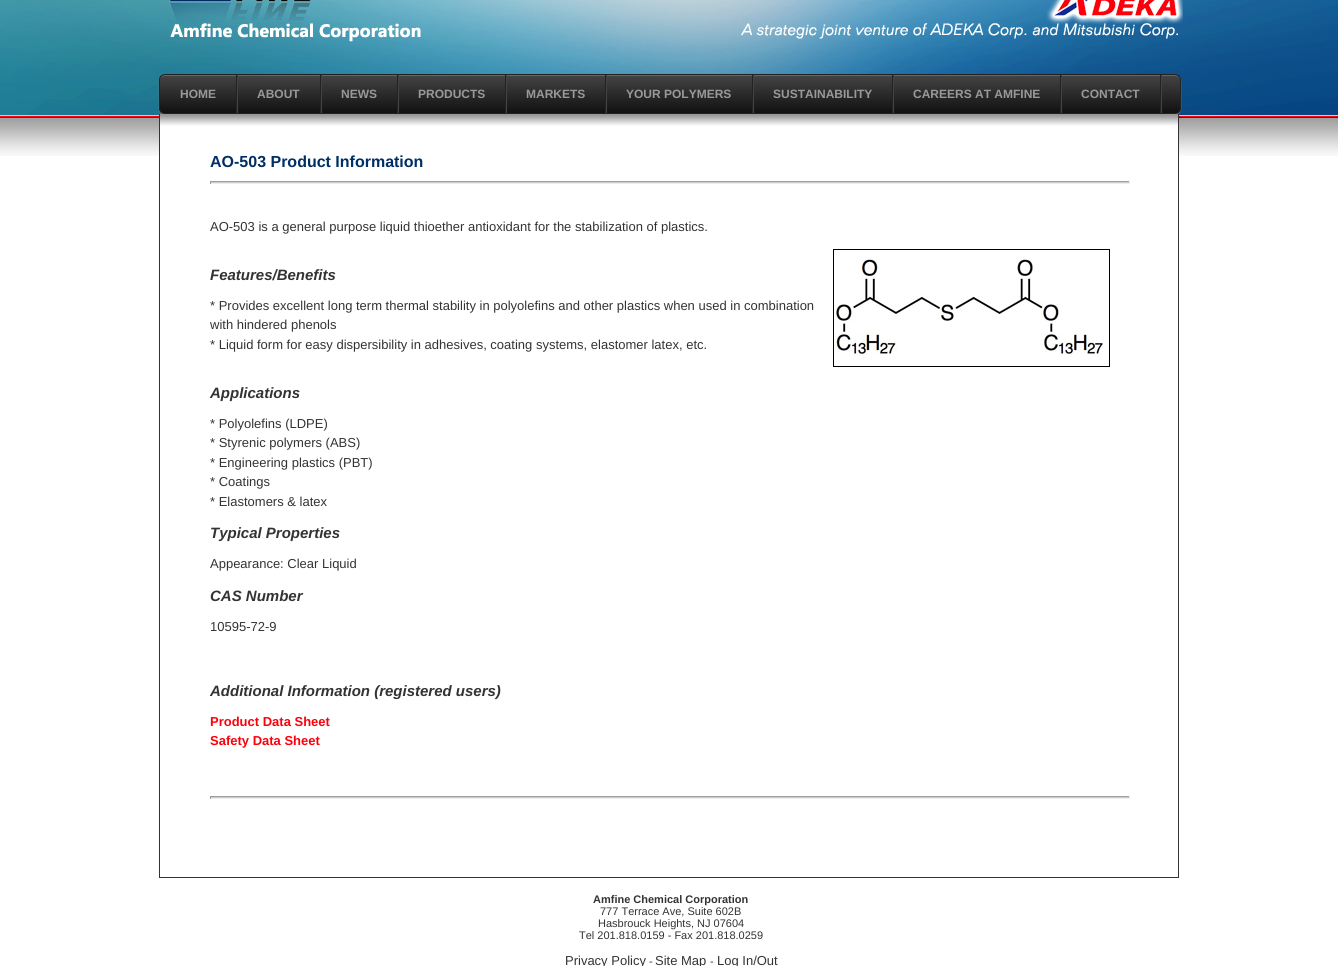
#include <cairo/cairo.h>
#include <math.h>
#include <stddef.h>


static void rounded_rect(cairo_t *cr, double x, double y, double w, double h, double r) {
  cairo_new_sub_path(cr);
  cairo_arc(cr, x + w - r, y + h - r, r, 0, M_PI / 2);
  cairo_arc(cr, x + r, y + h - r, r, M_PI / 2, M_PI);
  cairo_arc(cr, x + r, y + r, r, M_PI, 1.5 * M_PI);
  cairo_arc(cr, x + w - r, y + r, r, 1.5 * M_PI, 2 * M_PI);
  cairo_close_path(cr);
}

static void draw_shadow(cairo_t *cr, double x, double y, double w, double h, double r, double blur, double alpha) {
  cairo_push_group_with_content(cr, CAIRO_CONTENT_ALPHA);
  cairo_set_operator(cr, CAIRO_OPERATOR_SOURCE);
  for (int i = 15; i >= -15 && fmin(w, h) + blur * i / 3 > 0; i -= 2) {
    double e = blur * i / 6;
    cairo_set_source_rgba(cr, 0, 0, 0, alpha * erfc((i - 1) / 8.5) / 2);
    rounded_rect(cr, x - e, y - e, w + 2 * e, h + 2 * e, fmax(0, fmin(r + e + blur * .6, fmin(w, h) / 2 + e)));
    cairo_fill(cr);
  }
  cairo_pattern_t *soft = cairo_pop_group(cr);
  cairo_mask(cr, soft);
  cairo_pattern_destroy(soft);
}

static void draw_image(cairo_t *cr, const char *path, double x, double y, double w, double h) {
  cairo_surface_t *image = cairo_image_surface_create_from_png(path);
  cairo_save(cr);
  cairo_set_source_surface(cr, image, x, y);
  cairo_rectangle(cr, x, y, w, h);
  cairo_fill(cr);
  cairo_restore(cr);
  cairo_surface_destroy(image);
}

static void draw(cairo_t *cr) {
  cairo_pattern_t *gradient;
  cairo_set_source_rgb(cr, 1, 1, 1);
  cairo_paint(cr);
  draw_image(cr, "images/1.png", 0, 0, 1338, 156);
  draw_image(cr, "images/2.png", 169, 0, 1014, 42);
  cairo_set_source_rgb(cr, 119 / 255.0, 119 / 255.0, 119 / 255.0);
  draw_shadow(cr, 159, 75, 1022, 40, 6, 0.5, 1);
  cairo_save(cr);
  rounded_rect(cr, 159, 74, 1022, 40, 6);
  cairo_clip(cr);
  gradient = cairo_pattern_create_linear(670, 75, 670, 113);
  cairo_pattern_add_color_stop_rgba(gradient, 0, 68 / 255.0, 68 / 255.0, 68 / 255.0, 1);
  cairo_pattern_add_color_stop_rgba(gradient, 1, 17 / 255.0, 17 / 255.0, 17 / 255.0, 1);
  cairo_set_source(cr, gradient);
  cairo_pattern_destroy(gradient);
  cairo_rectangle(cr, 159, 75, 1022, 38);
  cairo_fill(cr);
  cairo_restore(cr);
  cairo_set_source_rgb(cr, 102 / 255.0, 102 / 255.0, 102 / 255.0);
  cairo_new_path(cr);
  cairo_move_to(cr, 165, 76);
  cairo_line_to(cr, 1175, 76);
  cairo_curve_to(cr, 1178, 76, 1180, 78, 1180, 81);
  cairo_curve_to(cr, 1180, 78, 1178, 75, 1175, 75);
  cairo_line_to(cr, 165, 75);
  cairo_curve_to(cr, 162, 75, 160, 78, 160, 81);
  cairo_curve_to(cr, 160, 78, 162, 76, 165, 76);
  cairo_close_path(cr);
  cairo_fill(cr);
  rounded_rect(cr, 159.5, 74.5, 1021, 39, 5.5);
  cairo_set_source_rgb(cr, 34 / 255.0, 34 / 255.0, 34 / 255.0);
  cairo_set_line_width(cr, 1);
  cairo_stroke(cr);
  cairo_set_source_rgb(cr, 68 / 255.0, 68 / 255.0, 68 / 255.0);
  cairo_rectangle(cr, 237, 75, 1, 38);
  cairo_fill(cr);
  cairo_set_source_rgb(cr, 34 / 255.0, 34 / 255.0, 34 / 255.0);
  cairo_rectangle(cr, 236, 75, 1, 38);
  cairo_fill(cr);
  cairo_set_source_rgb(cr, 68 / 255.0, 68 / 255.0, 68 / 255.0);
  cairo_rectangle(cr, 321, 75, 1, 38);
  cairo_fill(cr);
  cairo_set_source_rgb(cr, 34 / 255.0, 34 / 255.0, 34 / 255.0);
  cairo_rectangle(cr, 320, 75, 1, 38);
  cairo_fill(cr);
  cairo_set_source_rgb(cr, 68 / 255.0, 68 / 255.0, 68 / 255.0);
  cairo_rectangle(cr, 398, 75, 1, 38);
  cairo_fill(cr);
  cairo_set_source_rgb(cr, 34 / 255.0, 34 / 255.0, 34 / 255.0);
  cairo_rectangle(cr, 397, 75, 1, 38);
  cairo_fill(cr);
  cairo_set_source_rgb(cr, 68 / 255.0, 68 / 255.0, 68 / 255.0);
  cairo_rectangle(cr, 506, 75, 1, 38);
  cairo_fill(cr);
  cairo_set_source_rgb(cr, 34 / 255.0, 34 / 255.0, 34 / 255.0);
  cairo_rectangle(cr, 505, 75, 1, 38);
  cairo_fill(cr);
  cairo_set_source_rgb(cr, 68 / 255.0, 68 / 255.0, 68 / 255.0);
  cairo_rectangle(cr, 606, 75, 1, 38);
  cairo_fill(cr);
  cairo_set_source_rgb(cr, 34 / 255.0, 34 / 255.0, 34 / 255.0);
  cairo_rectangle(cr, 605, 75, 1, 38);
  cairo_fill(cr);
  cairo_set_source_rgb(cr, 68 / 255.0, 68 / 255.0, 68 / 255.0);
  cairo_rectangle(cr, 753, 75, 1, 38);
  cairo_fill(cr);
  cairo_set_source_rgb(cr, 34 / 255.0, 34 / 255.0, 34 / 255.0);
  cairo_rectangle(cr, 752, 75, 1, 38);
  cairo_fill(cr);
  cairo_set_source_rgb(cr, 68 / 255.0, 68 / 255.0, 68 / 255.0);
  cairo_rectangle(cr, 893, 75, 1, 38);
  cairo_fill(cr);
  cairo_set_source_rgb(cr, 34 / 255.0, 34 / 255.0, 34 / 255.0);
  cairo_rectangle(cr, 892, 75, 1, 38);
  cairo_fill(cr);
  cairo_set_source_rgb(cr, 68 / 255.0, 68 / 255.0, 68 / 255.0);
  cairo_rectangle(cr, 1061, 75, 1, 38);
  cairo_fill(cr);
  cairo_set_source_rgb(cr, 34 / 255.0, 34 / 255.0, 34 / 255.0);
  cairo_rectangle(cr, 1060, 75, 1, 38);
  cairo_fill(cr);
  cairo_set_source_rgb(cr, 68 / 255.0, 68 / 255.0, 68 / 255.0);
  cairo_rectangle(cr, 1161, 75, 1, 38);
  cairo_fill(cr);
  cairo_set_source_rgb(cr, 34 / 255.0, 34 / 255.0, 34 / 255.0);
  cairo_rectangle(cr, 1160, 75, 1, 38);
  cairo_fill(cr);
  cairo_set_source_rgb(cr, 1, 1, 1);
  cairo_rectangle(cr, 160, 126, 1018, 30);
  cairo_fill(cr);
  draw_image(cr, "images/3.png", 160, 114, 1018, 12);
  cairo_set_source_rgb(cr, 51 / 255.0, 51 / 255.0, 51 / 255.0);
  cairo_rectangle(cr, 1178, 114, 1, 764);
  cairo_fill(cr);
  cairo_rectangle(cr, 159, 877, 1020, 1);
  cairo_fill(cr);
  cairo_rectangle(cr, 159, 114, 1, 764);
  cairo_fill(cr);
  cairo_set_source_rgb(cr, 204 / 255.0, 204 / 255.0, 204 / 255.0);
  cairo_rectangle(cr, 210, 182, 920, 1);
  cairo_fill(cr);
  cairo_set_source_rgb(cr, 159 / 255.0, 159 / 255.0, 159 / 255.0);
  cairo_rectangle(cr, 210, 181, 920, 1);
  cairo_fill(cr);
  cairo_set_source_rgb(cr, 238 / 255.0, 238 / 255.0, 238 / 255.0);
  cairo_rectangle(cr, 1129, 181, 1, 3);
  cairo_fill(cr);
  cairo_rectangle(cr, 210, 183, 920, 1);
  cairo_fill(cr);
  cairo_set_source_rgb(cr, 159 / 255.0, 159 / 255.0, 159 / 255.0);
  cairo_rectangle(cr, 210, 181, 1, 3);
  cairo_fill(cr);
  cairo_rectangle(cr, 833.5, 249.5, 276, 117);
  cairo_set_source_rgb(cr, 0, 0, 0);
  cairo_stroke(cr);
  draw_image(cr, "images/4.png", 834, 257, 273, 101);
  cairo_set_source_rgb(cr, 204 / 255.0, 204 / 255.0, 204 / 255.0);
  cairo_rectangle(cr, 210, 797, 920, 1);
  cairo_fill(cr);
  cairo_set_source_rgb(cr, 159 / 255.0, 159 / 255.0, 159 / 255.0);
  cairo_rectangle(cr, 210, 796, 920, 1);
  cairo_fill(cr);
  cairo_set_source_rgb(cr, 238 / 255.0, 238 / 255.0, 238 / 255.0);
  cairo_rectangle(cr, 1129, 796, 1, 3);
  cairo_fill(cr);
  cairo_rectangle(cr, 210, 798, 920, 1);
  cairo_fill(cr);
  cairo_set_source_rgb(cr, 159 / 255.0, 159 / 255.0, 159 / 255.0);
  cairo_rectangle(cr, 210, 796, 1, 3);
  cairo_fill(cr);
  cairo_select_font_face(cr, "Liberation Sans", CAIRO_FONT_SLANT_NORMAL, CAIRO_FONT_WEIGHT_BOLD);
  cairo_set_font_size(cr, 12);
  cairo_set_source_rgb(cr, 153 / 255.0, 153 / 255.0, 153 / 255.0);
  cairo_move_to(cr, 180, 98);
  cairo_show_text(cr, "HOME");
  cairo_move_to(cr, 257, 98);
  cairo_show_text(cr, "ABOUT");
  cairo_move_to(cr, 341, 98);
  cairo_show_text(cr, "NEWS");
  cairo_move_to(cr, 418, 98);
  cairo_show_text(cr, "PRODUCTS");
  cairo_move_to(cr, 526, 98);
  cairo_show_text(cr, "MARKETS");
  cairo_move_to(cr, 626, 98);
  cairo_show_text(cr, "YOUR POLYMERS");
  cairo_move_to(cr, 773, 98);
  cairo_show_text(cr, "SUSTAINABILITY");
  cairo_move_to(cr, 913, 98);
  cairo_show_text(cr, "CAREERS AT AMFINE");
  cairo_move_to(cr, 1081, 98);
  cairo_show_text(cr, "CONTACT");
  cairo_set_font_size(cr, 16);
  cairo_set_source_rgb(cr, 0, 47 / 255.0, 101 / 255.0);
  cairo_move_to(cr, 210, 167);
  cairo_show_text(cr, "AO-503 Product Information");
  cairo_select_font_face(cr, "Liberation Sans", CAIRO_FONT_SLANT_NORMAL, CAIRO_FONT_WEIGHT_NORMAL);
  cairo_set_font_size(cr, 13);
  cairo_set_source_rgb(cr, 51 / 255.0, 51 / 255.0, 51 / 255.0);
  cairo_move_to(cr, 210, 231);
  cairo_show_text(cr, "AO-503 is a general purpose liquid thioether antioxidant for the stabilization of plastics.");
  cairo_select_font_face(cr, "Liberation Sans", CAIRO_FONT_SLANT_ITALIC, CAIRO_FONT_WEIGHT_BOLD);
  cairo_set_font_size(cr, 15);
  cairo_move_to(cr, 210, 280);
  cairo_show_text(cr, "Features/Benefits");
  cairo_select_font_face(cr, "Liberation Sans", CAIRO_FONT_SLANT_NORMAL, CAIRO_FONT_WEIGHT_NORMAL);
  cairo_set_font_size(cr, 13);
  cairo_move_to(cr, 210, 310);
  cairo_show_text(cr, "* Provides excellent long term thermal stability in polyolefins and other plastics when used in combination");
  cairo_move_to(cr, 210, 329);
  cairo_show_text(cr, "with hindered phenols");
  cairo_move_to(cr, 210, 349);
  cairo_show_text(cr, "* Liquid form for easy dispersibility in adhesives, coating systems, elastomer latex, etc.");
  cairo_select_font_face(cr, "Liberation Sans", CAIRO_FONT_SLANT_ITALIC, CAIRO_FONT_WEIGHT_BOLD);
  cairo_set_font_size(cr, 15);
  cairo_move_to(cr, 210, 398);
  cairo_show_text(cr, "Applications");
  cairo_select_font_face(cr, "Liberation Sans", CAIRO_FONT_SLANT_NORMAL, CAIRO_FONT_WEIGHT_NORMAL);
  cairo_set_font_size(cr, 13);
  cairo_move_to(cr, 210, 428);
  cairo_show_text(cr, "* Polyolefins (LDPE)");
  cairo_move_to(cr, 210, 447);
  cairo_show_text(cr, "* Styrenic polymers (ABS)");
  cairo_move_to(cr, 210, 467);
  cairo_show_text(cr, "* Engineering plastics (PBT)");
  cairo_move_to(cr, 210, 486);
  cairo_show_text(cr, "* Coatings");
  cairo_move_to(cr, 210, 506);
  cairo_show_text(cr, "* Elastomers & latex");
  cairo_select_font_face(cr, "Liberation Sans", CAIRO_FONT_SLANT_ITALIC, CAIRO_FONT_WEIGHT_BOLD);
  cairo_set_font_size(cr, 15);
  cairo_move_to(cr, 210, 538);
  cairo_show_text(cr, "Typical Properties");
  cairo_select_font_face(cr, "Liberation Sans", CAIRO_FONT_SLANT_NORMAL, CAIRO_FONT_WEIGHT_NORMAL);
  cairo_set_font_size(cr, 13);
  cairo_move_to(cr, 210, 568);
  cairo_show_text(cr, "Appearance: Clear Liquid");
  cairo_select_font_face(cr, "Liberation Sans", CAIRO_FONT_SLANT_ITALIC, CAIRO_FONT_WEIGHT_BOLD);
  cairo_set_font_size(cr, 15);
  cairo_move_to(cr, 210, 601);
  cairo_show_text(cr, "CAS Number");
  cairo_select_font_face(cr, "Liberation Sans", CAIRO_FONT_SLANT_NORMAL, CAIRO_FONT_WEIGHT_NORMAL);
  cairo_set_font_size(cr, 13);
  cairo_move_to(cr, 210, 631);
  cairo_show_text(cr, "10595-72-9");
  cairo_select_font_face(cr, "Liberation Sans", CAIRO_FONT_SLANT_ITALIC, CAIRO_FONT_WEIGHT_BOLD);
  cairo_set_font_size(cr, 15);
  cairo_move_to(cr, 210, 696);
  cairo_show_text(cr, "Additional Information (registered users)");
  cairo_select_font_face(cr, "Liberation Sans", CAIRO_FONT_SLANT_NORMAL, CAIRO_FONT_WEIGHT_BOLD);
  cairo_set_font_size(cr, 13);
  cairo_set_source_rgb(cr, 253 / 255.0, 0, 12 / 255.0);
  cairo_move_to(cr, 210, 726);
  cairo_show_text(cr, "Product Data Sheet");
  cairo_move_to(cr, 210, 745);
  cairo_show_text(cr, "Safety Data Sheet");
  cairo_set_font_size(cr, 11);
  cairo_set_source_rgb(cr, 51 / 255.0, 51 / 255.0, 51 / 255.0);
  cairo_move_to(cr, 593, 903);
  cairo_show_text(cr, "Amfine Chemical Corporation");
  cairo_select_font_face(cr, "Liberation Sans", CAIRO_FONT_SLANT_NORMAL, CAIRO_FONT_WEIGHT_NORMAL);
  cairo_move_to(cr, 600, 915);
  cairo_show_text(cr, "777 Terrace Ave, Suite 602B");
  cairo_move_to(cr, 598, 927);
  cairo_show_text(cr, "Hasbrouck Heights, NJ 07604");
  cairo_move_to(cr, 579, 939);
  cairo_show_text(cr, "Tel 201.818.0159 - Fax 201.818.0259");
  cairo_set_font_size(cr, 13);
  cairo_move_to(cr, 565, 965);
  cairo_show_text(cr, "Privacy Policy");
  cairo_set_font_size(cr, 11);
  cairo_move_to(cr, 649, 965);
  cairo_show_text(cr, "-");
  cairo_set_font_size(cr, 13);
  cairo_move_to(cr, 655, 965);
  cairo_show_text(cr, "Site Map");
  cairo_set_font_size(cr, 11);
  cairo_move_to(cr, 710, 965);
  cairo_show_text(cr, "-");
  cairo_set_font_size(cr, 13);
  cairo_move_to(cr, 717, 965);
  cairo_show_text(cr, "Log In/Out");
}

int main(void) {
  cairo_surface_t *surface = cairo_image_surface_create(CAIRO_FORMAT_RGB24, 1338, 966);
  cairo_t *cr = cairo_create(surface);
  cairo_font_options_t *options = cairo_font_options_create();
  cairo_font_options_set_hint_metrics(options, CAIRO_HINT_METRICS_OFF);
  cairo_font_options_set_hint_style(options, CAIRO_HINT_STYLE_NONE);
  cairo_set_font_options(cr, options);
  cairo_set_miter_limit(cr, 4);
  draw(cr);
  cairo_surface_write_to_png(surface, "out.png");
  cairo_font_options_destroy(options);
  cairo_destroy(cr);
  cairo_surface_destroy(surface);
  return 0;
}
